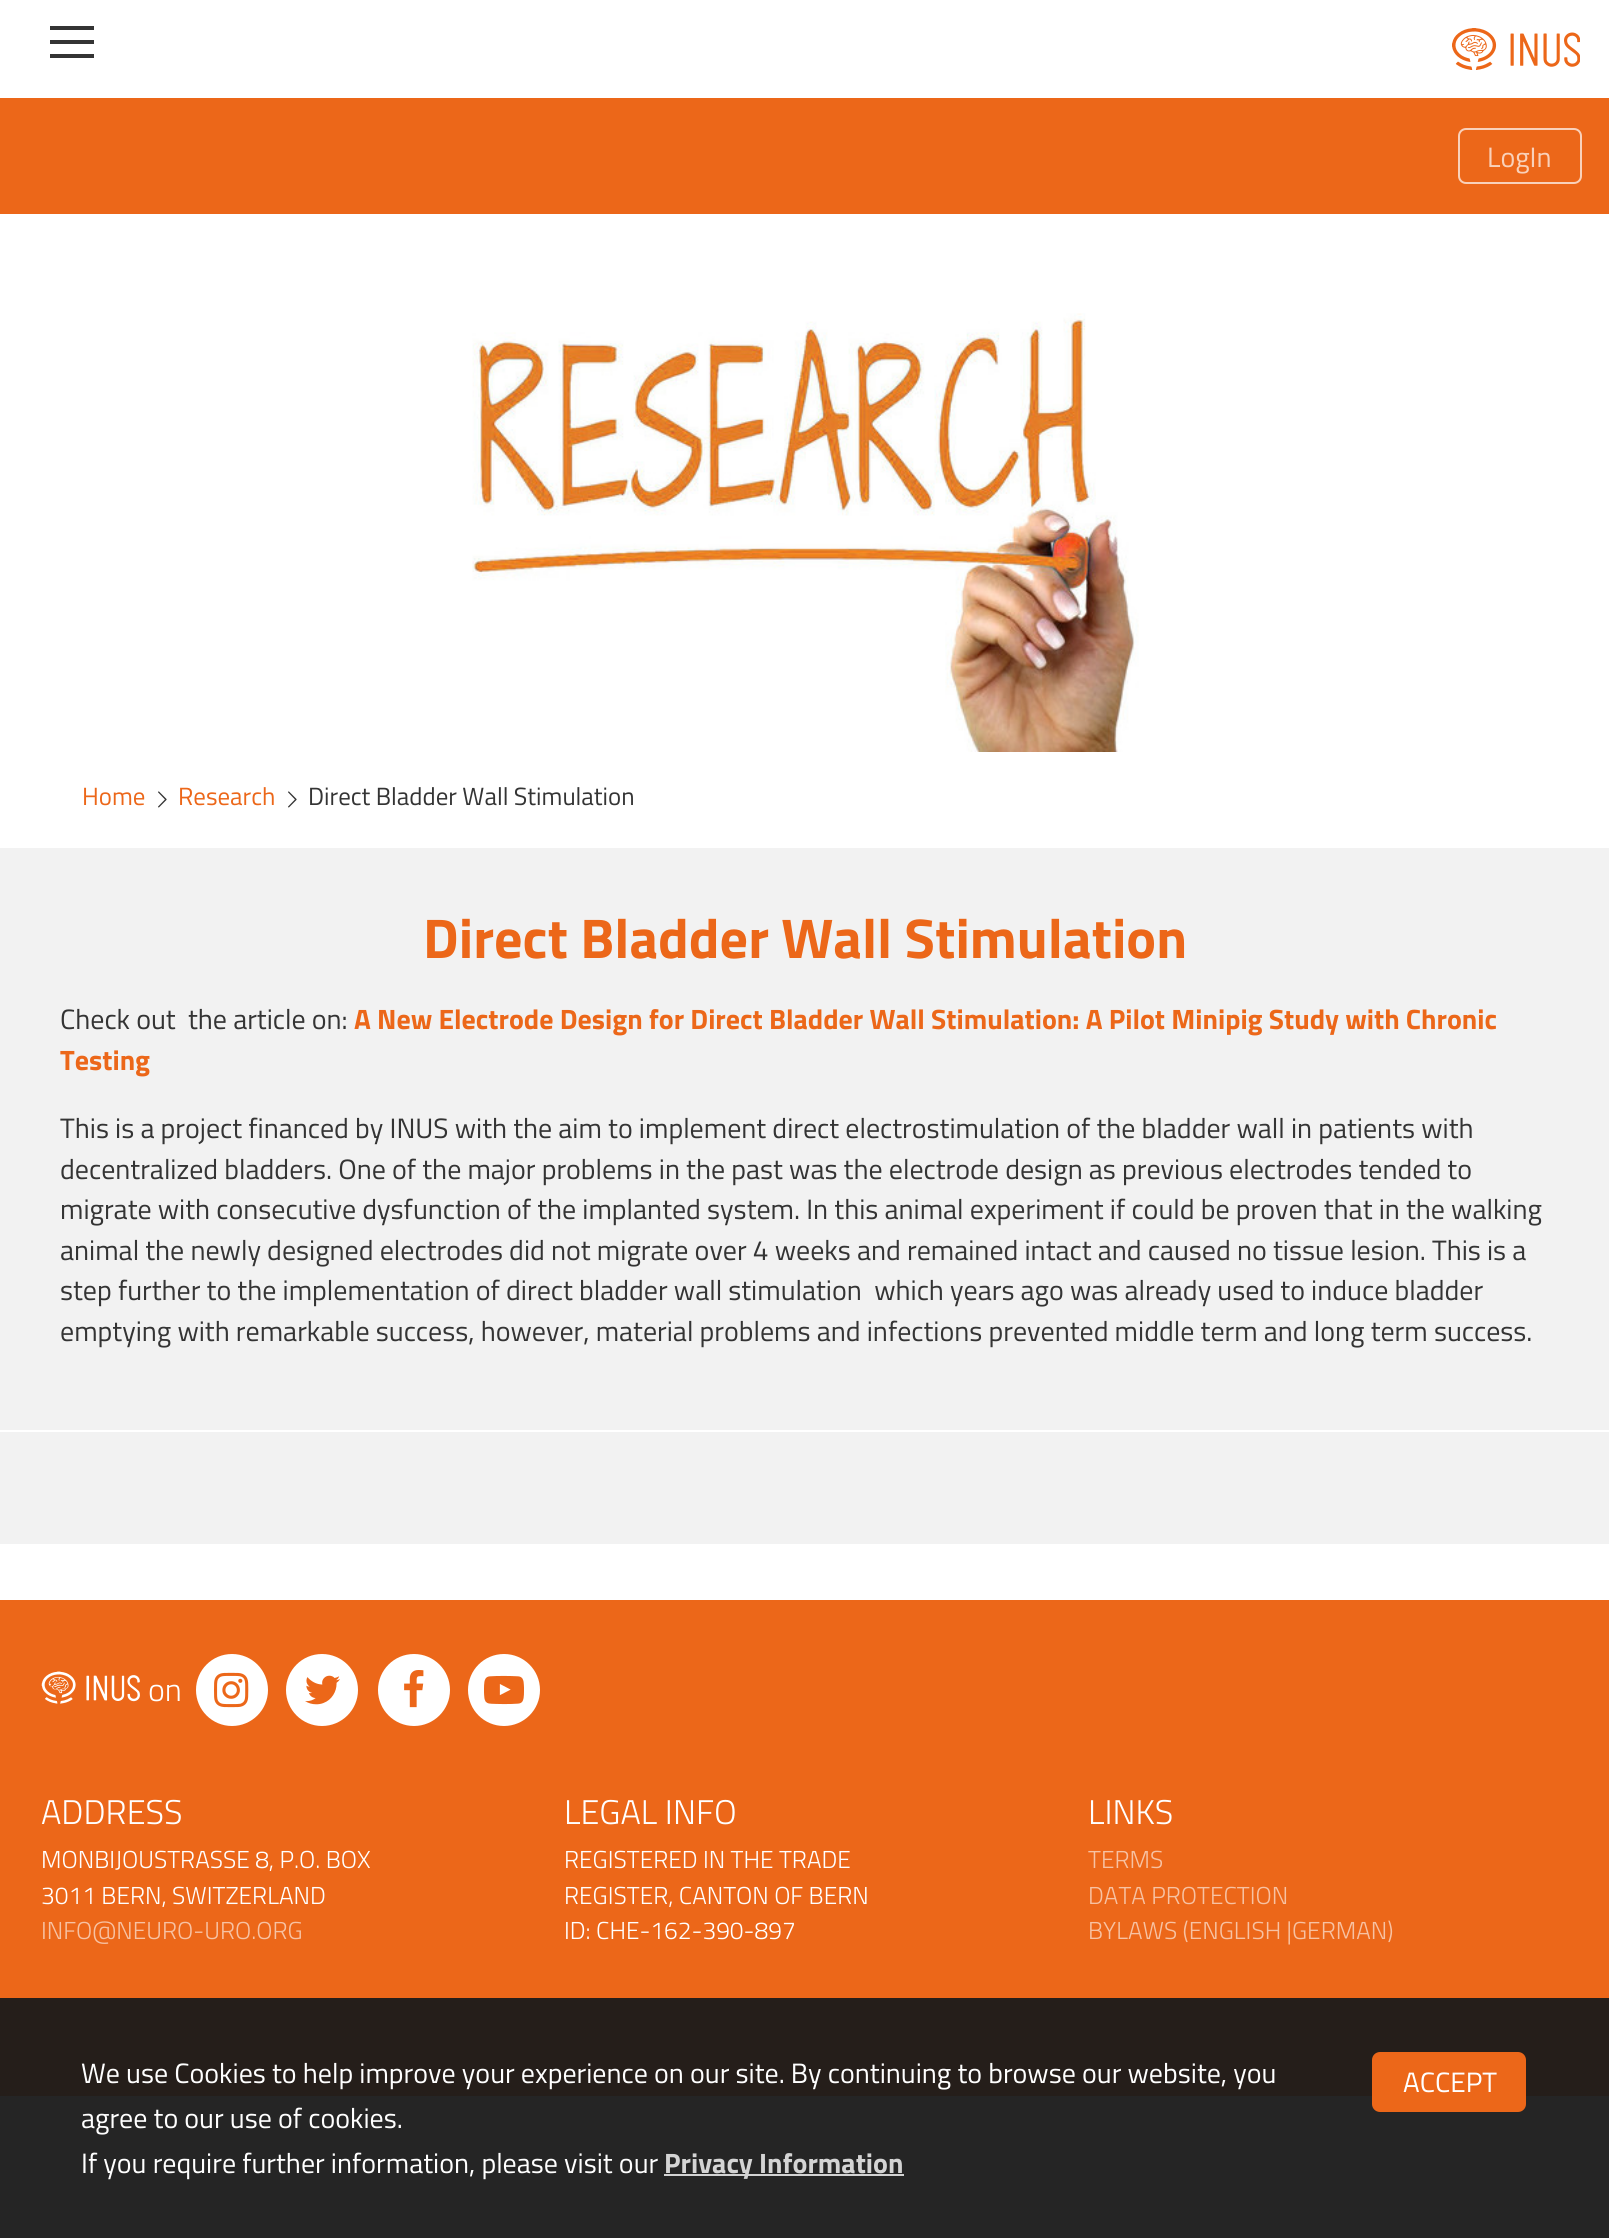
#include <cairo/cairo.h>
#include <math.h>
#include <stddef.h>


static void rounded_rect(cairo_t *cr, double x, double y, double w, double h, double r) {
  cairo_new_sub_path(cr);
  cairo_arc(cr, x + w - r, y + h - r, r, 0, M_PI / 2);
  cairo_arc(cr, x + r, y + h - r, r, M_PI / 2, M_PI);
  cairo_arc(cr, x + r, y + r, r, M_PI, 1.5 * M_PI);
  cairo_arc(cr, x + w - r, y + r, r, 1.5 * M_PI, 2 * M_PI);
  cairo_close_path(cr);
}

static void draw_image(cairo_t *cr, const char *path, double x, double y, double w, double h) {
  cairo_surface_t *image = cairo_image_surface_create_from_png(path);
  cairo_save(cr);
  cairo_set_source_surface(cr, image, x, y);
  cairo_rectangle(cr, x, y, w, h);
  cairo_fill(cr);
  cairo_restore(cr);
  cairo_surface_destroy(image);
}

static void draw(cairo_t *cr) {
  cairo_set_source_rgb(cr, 1, 1, 1);
  cairo_paint(cr);
  cairo_set_source_rgb(cr, 37 / 255.0, 37 / 255.0, 37 / 255.0);
  cairo_rectangle(cr, 0, 2096, 1609, 142);
  cairo_fill(cr);
  cairo_set_source_rgb(cr, 52 / 255.0, 52 / 255.0, 52 / 255.0);
  cairo_rectangle(cr, 50, 26, 44, 4);
  cairo_fill(cr);
  cairo_rectangle(cr, 50, 40, 44, 4);
  cairo_fill(cr);
  cairo_rectangle(cr, 50, 54, 44, 4);
  cairo_fill(cr);
  draw_image(cr, "images/1.png", 1452, 28, 128, 42);
  cairo_set_source_rgb(cr, 236 / 255.0, 103 / 255.0, 25 / 255.0);
  cairo_rectangle(cr, 0, 98, 1609, 116);
  cairo_fill(cr);
  rounded_rect(cr, 1459, 129, 122, 54, 7);
  cairo_set_source_rgb(cr, 249 / 255.0, 209 / 255.0, 186 / 255.0);
  cairo_stroke(cr);
  cairo_set_source_rgb(cr, 242 / 255.0, 242 / 255.0, 242 / 255.0);
  cairo_rectangle(cr, 0, 848, 1609, 696);
  cairo_fill(cr);
  draw_image(cr, "images/2.png", 472, 313, 667, 439);
  draw_image(cr, "images/3.png", 158, 791, 9, 17);
  draw_image(cr, "images/3.png", 288, 791, 9, 17);
  cairo_set_source_rgb(cr, 1, 1, 1);
  cairo_rectangle(cr, 0, 1430, 1609, 2);
  cairo_fill(cr);
  cairo_set_source_rgb(cr, 236 / 255.0, 103 / 255.0, 25 / 255.0);
  cairo_rectangle(cr, 0, 1600, 1609, 398);
  cairo_fill(cr);
  cairo_set_source_rgb(cr, 37 / 255.0, 30 / 255.0, 26 / 255.0);
  cairo_rectangle(cr, 0, 1998, 1609, 98);
  cairo_fill(cr);
  draw_image(cr, "images/4.png", 41, 1671, 99, 33);
  cairo_set_source_rgb(cr, 1, 1, 1);
  cairo_arc(cr, 232, 1690, 36, 0, 2 * M_PI);
  cairo_fill(cr);
  draw_image(cr, "images/5.png", 214, 1672, 35, 36);
  cairo_arc(cr, 322, 1690, 36, 0, 2 * M_PI);
  cairo_fill(cr);
  draw_image(cr, "images/6.png", 305, 1675, 35, 30);
  cairo_arc(cr, 414, 1690, 36, 0, 2 * M_PI);
  cairo_fill(cr);
  draw_image(cr, "images/7.png", 404, 1670, 20, 38);
  cairo_arc(cr, 504, 1690, 36, 0, 2 * M_PI);
  cairo_fill(cr);
  draw_image(cr, "images/8.png", 484, 1675, 40, 30);
  cairo_set_source_rgb(cr, 211 / 255.0, 211 / 255.0, 211 / 255.0);
  cairo_rectangle(cr, 664, 2174, 240, 2);
  cairo_fill(cr);
  cairo_set_source_rgb(cr, 236 / 255.0, 103 / 255.0, 25 / 255.0);
  rounded_rect(cr, 1373, 2053, 152, 58, 7);
  cairo_fill_preserve(cr);
  cairo_stroke(cr);
  cairo_select_font_face(cr, "Titillium Web", CAIRO_FONT_SLANT_NORMAL, CAIRO_FONT_WEIGHT_NORMAL);
  cairo_set_font_size(cr, 28);
  cairo_set_source_rgb(cr, 249 / 255.0, 209 / 255.0, 186 / 255.0);
  cairo_move_to(cr, 1487, 167);
  cairo_show_text(cr, "LogIn");
  cairo_set_font_size(cr, 24.9);
  cairo_set_source_rgb(cr, 236 / 255.0, 103 / 255.0, 25 / 255.0);
  cairo_move_to(cr, 82, 805);
  cairo_show_text(cr, "Home");
  cairo_move_to(cr, 178, 805);
  cairo_show_text(cr, "Research");
  cairo_set_source_rgb(cr, 52 / 255.0, 52 / 255.0, 52 / 255.0);
  cairo_move_to(cr, 308, 805);
  cairo_show_text(cr, "Direct Bladder Wall Stimulation");
  cairo_select_font_face(cr, "Titillium Web", CAIRO_FONT_SLANT_NORMAL, CAIRO_FONT_WEIGHT_BOLD);
  cairo_set_font_size(cr, 56);
  cairo_set_source_rgb(cr, 236 / 255.0, 103 / 255.0, 25 / 255.0);
  cairo_move_to(cr, 423, 958);
  cairo_show_text(cr, "Direct Bladder Wall Stimulation");
  cairo_select_font_face(cr, "Titillium Web", CAIRO_FONT_SLANT_NORMAL, CAIRO_FONT_WEIGHT_NORMAL);
  cairo_set_font_size(cr, 28);
  cairo_set_source_rgb(cr, 52 / 255.0, 52 / 255.0, 52 / 255.0);
  cairo_move_to(cr, 60, 1029);
  cairo_show_text(cr, "Check out  the article on:");
  cairo_select_font_face(cr, "Titillium Web", CAIRO_FONT_SLANT_NORMAL, CAIRO_FONT_WEIGHT_BOLD);
  cairo_set_source_rgb(cr, 236 / 255.0, 103 / 255.0, 25 / 255.0);
  cairo_move_to(cr, 354, 1029);
  cairo_show_text(cr, "A New Electrode Design for Direct Bladder Wall Stimulation: A Pilot Minipig Study with Chronic");
  cairo_move_to(cr, 60, 1070);
  cairo_show_text(cr, "Testing");
  cairo_select_font_face(cr, "Titillium Web", CAIRO_FONT_SLANT_NORMAL, CAIRO_FONT_WEIGHT_NORMAL);
  cairo_set_source_rgb(cr, 52 / 255.0, 52 / 255.0, 52 / 255.0);
  cairo_move_to(cr, 60, 1138);
  cairo_show_text(cr, "This is a project financed by INUS with the aim to implement direct electrostimulation of the bladder wall in patients with");
  cairo_move_to(cr, 60, 1179);
  cairo_show_text(cr, "decentralized bladders. One of the major problems in the past was the electrode design as previous electrodes tended to");
  cairo_move_to(cr, 60, 1219);
  cairo_show_text(cr, "migrate with consecutive dysfunction of the implanted system. In this animal experiment if could be proven that in the walking");
  cairo_move_to(cr, 60, 1260);
  cairo_show_text(cr, "animal the newly designed electrodes did not migrate over 4 weeks and remained intact and caused no tissue lesion. This is a");
  cairo_move_to(cr, 60, 1300);
  cairo_show_text(cr, "step further to the implementation of direct bladder wall stimulation  which years ago was already used to induce bladder");
  cairo_move_to(cr, 60, 1341);
  cairo_show_text(cr, "emptying with remarkable success, however, material problems and infections prevented middle term and long term success.");
  cairo_select_font_face(cr, "Titillium Web Light", CAIRO_FONT_SLANT_NORMAL, CAIRO_FONT_WEIGHT_NORMAL);
  cairo_set_font_size(cr, 32);
  cairo_set_source_rgb(cr, 1, 1, 1);
  cairo_move_to(cr, 148, 1701);
  cairo_show_text(cr, "on");
  cairo_set_font_size(cr, 34.25);
  cairo_move_to(cr, 41, 1824);
  cairo_show_text(cr, "ADDRESS");
  cairo_set_font_size(cr, 24.5);
  cairo_move_to(cr, 41, 1868);
  cairo_show_text(cr, "MONBIJOUSTRASSE 8, P.O. BOX");
  cairo_move_to(cr, 41, 1904);
  cairo_show_text(cr, "3011 BERN, SWITZERLAND");
  cairo_set_source_rgb(cr, 247 / 255.0, 194 / 255.0, 163 / 255.0);
  cairo_move_to(cr, 41, 1939);
  cairo_show_text(cr, "INFO@NEURO-URO.ORG");
  cairo_set_font_size(cr, 34.25);
  cairo_set_source_rgb(cr, 1, 1, 1);
  cairo_move_to(cr, 564, 1824);
  cairo_show_text(cr, "LEGAL INFO");
  cairo_set_font_size(cr, 24.5);
  cairo_move_to(cr, 564, 1868);
  cairo_show_text(cr, "REGISTERED IN THE TRADE");
  cairo_move_to(cr, 564, 1904);
  cairo_show_text(cr, "REGISTER, CANTON OF BERN");
  cairo_move_to(cr, 564, 1939);
  cairo_show_text(cr, "ID: CHE-162-390-897");
  cairo_set_font_size(cr, 34.25);
  cairo_move_to(cr, 1088, 1824);
  cairo_show_text(cr, "LINKS");
  cairo_set_font_size(cr, 24.5);
  cairo_set_source_rgb(cr, 247 / 255.0, 194 / 255.0, 163 / 255.0);
  cairo_move_to(cr, 1088, 1868);
  cairo_show_text(cr, "TERMS");
  cairo_move_to(cr, 1088, 1904);
  cairo_show_text(cr, "DATA PROTECTION");
  cairo_move_to(cr, 1088, 1939);
  cairo_show_text(cr, "BYLAWS (ENGLISH |GERMAN)");
  cairo_select_font_face(cr, "Titillium Web", CAIRO_FONT_SLANT_NORMAL, CAIRO_FONT_WEIGHT_NORMAL);
  cairo_set_font_size(cr, 28);
  cairo_set_source_rgb(cr, 1, 1, 1);
  cairo_move_to(cr, 81, 2083);
  cairo_show_text(cr, "We use Cookies to help improve your experience on our site. By continuing to browse our website, you");
  cairo_move_to(cr, 81, 2128);
  cairo_show_text(cr, "agree to our use of cookies.");
  cairo_move_to(cr, 81, 2173);
  cairo_show_text(cr, "If you require further information, please visit our");
  cairo_select_font_face(cr, "Titillium Web", CAIRO_FONT_SLANT_NORMAL, CAIRO_FONT_WEIGHT_BOLD);
  cairo_set_source_rgb(cr, 212 / 255.0, 212 / 255.0, 212 / 255.0);
  cairo_move_to(cr, 664, 2173);
  cairo_show_text(cr, "Privacy Information");
  cairo_select_font_face(cr, "Titillium Web", CAIRO_FONT_SLANT_NORMAL, CAIRO_FONT_WEIGHT_NORMAL);
  cairo_set_source_rgb(cr, 1, 1, 1);
  cairo_move_to(cr, 1403, 2092);
  cairo_show_text(cr, "ACCEPT");
}

int main(void) {
  cairo_surface_t *surface = cairo_image_surface_create(CAIRO_FORMAT_RGB24, 1609, 2238);
  cairo_t *cr = cairo_create(surface);
  cairo_font_options_t *options = cairo_font_options_create();
  cairo_font_options_set_hint_metrics(options, CAIRO_HINT_METRICS_OFF);
  cairo_font_options_set_hint_style(options, CAIRO_HINT_STYLE_NONE);
  cairo_set_font_options(cr, options);
  cairo_set_miter_limit(cr, 4);
  draw(cr);
  cairo_surface_write_to_png(surface, "out.png");
  cairo_font_options_destroy(options);
  cairo_destroy(cr);
  cairo_surface_destroy(surface);
  return 0;
}
